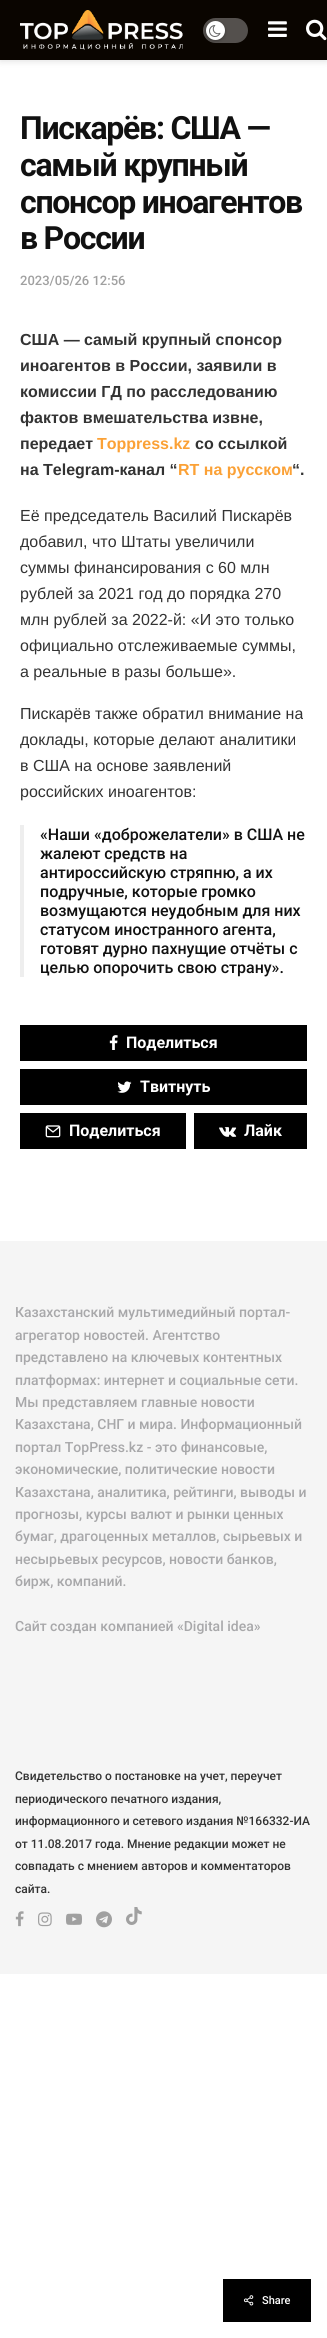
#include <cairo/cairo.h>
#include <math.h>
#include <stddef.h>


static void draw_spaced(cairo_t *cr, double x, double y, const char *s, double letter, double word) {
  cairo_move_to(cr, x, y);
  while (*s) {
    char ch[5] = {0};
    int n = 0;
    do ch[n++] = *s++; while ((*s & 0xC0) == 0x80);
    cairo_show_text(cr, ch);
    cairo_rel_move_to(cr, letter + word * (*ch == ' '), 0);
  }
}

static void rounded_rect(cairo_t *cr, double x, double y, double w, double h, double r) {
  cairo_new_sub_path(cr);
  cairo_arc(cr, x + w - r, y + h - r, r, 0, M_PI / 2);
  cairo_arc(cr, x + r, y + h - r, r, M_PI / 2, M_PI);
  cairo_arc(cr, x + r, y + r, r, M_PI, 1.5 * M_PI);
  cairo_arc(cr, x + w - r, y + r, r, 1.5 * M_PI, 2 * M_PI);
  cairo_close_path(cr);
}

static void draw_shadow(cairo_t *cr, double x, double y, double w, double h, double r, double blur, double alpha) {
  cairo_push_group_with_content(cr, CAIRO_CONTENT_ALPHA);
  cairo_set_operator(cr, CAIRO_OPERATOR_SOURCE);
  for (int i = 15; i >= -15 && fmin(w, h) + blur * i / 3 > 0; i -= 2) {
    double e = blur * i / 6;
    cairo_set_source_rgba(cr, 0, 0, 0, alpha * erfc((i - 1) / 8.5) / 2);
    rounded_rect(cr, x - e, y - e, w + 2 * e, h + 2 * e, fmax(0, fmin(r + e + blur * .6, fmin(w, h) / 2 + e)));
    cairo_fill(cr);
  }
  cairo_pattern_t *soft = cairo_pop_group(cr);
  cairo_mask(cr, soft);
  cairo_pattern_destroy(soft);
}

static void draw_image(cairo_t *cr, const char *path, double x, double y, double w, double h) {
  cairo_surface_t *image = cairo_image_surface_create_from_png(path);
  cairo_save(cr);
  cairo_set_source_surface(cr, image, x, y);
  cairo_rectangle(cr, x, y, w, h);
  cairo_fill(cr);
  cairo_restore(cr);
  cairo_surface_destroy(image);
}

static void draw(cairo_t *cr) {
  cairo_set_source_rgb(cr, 1, 1, 1);
  cairo_paint(cr);
  cairo_set_source_rgb(cr, 0, 0, 0);
  draw_shadow(cr, 0, 2, 327, 60, 0, 3, 0.1);
  cairo_set_source_rgb(cr, 10 / 255.0, 5 / 255.0, 0);
  cairo_rectangle(cr, 0, 0, 327, 60);
  cairo_fill(cr);
  draw_image(cr, "images/1.png", 20, 10, 163, 40);
  cairo_set_source_rgb(cr, 84 / 255.0, 80 / 255.0, 77 / 255.0);
  rounded_rect(cr, 203, 18, 45, 25, 12.5);
  cairo_fill(cr);
  cairo_set_source_rgb(cr, 0, 0, 0);
  draw_shadow(cr, 206, 22, 19, 19, 9.5, 1.5, 0.3);
  cairo_set_source_rgb(cr, 1, 1, 1);
  cairo_arc(cr, 215.5, 30.5, 9.5, 0, 2 * M_PI);
  cairo_fill(cr);
  draw_image(cr, "images/2.png", 209, 25, 12, 12);
  draw_image(cr, "images/3.png", 268, 21, 19, 16);
  draw_image(cr, "images/4.png", 306, 19, 21, 22);
  cairo_set_source_rgb(cr, 238 / 255.0, 238 / 255.0, 238 / 255.0);
  cairo_rectangle(cr, 20, 825, 4, 152);
  cairo_fill(cr);
  cairo_set_source_rgb(cr, 0, 0, 0);
  cairo_rectangle(cr, 20, 1025, 287, 36);
  cairo_fill(cr);
  draw_image(cr, "images/5.png", 109, 1035, 9, 15);
  cairo_rectangle(cr, 20, 1069, 287, 36);
  cairo_fill(cr);
  draw_image(cr, "images/6.png", 117, 1081, 15, 12);
  cairo_rectangle(cr, 20, 1113, 166, 36);
  cairo_fill(cr);
  draw_image(cr, "images/7.png", 45, 1125, 16, 13);
  cairo_rectangle(cr, 194, 1113, 113, 36);
  cairo_fill(cr);
  draw_image(cr, "images/8.png", 219, 1127, 18, 10);
  cairo_set_source_rgb(cr, 245 / 255.0, 245 / 255.0, 245 / 255.0);
  cairo_rectangle(cr, 0, 1241, 327, 733);
  cairo_fill(cr);
  draw_image(cr, "images/9.png", 15, 1911, 9, 16);
  draw_image(cr, "images/10.png", 38, 1912, 14, 15);
  draw_image(cr, "images/11.png", 66, 1913, 16, 12);
  draw_image(cr, "images/12.png", 96, 1911, 16, 17);
  draw_image(cr, "images/13.png", 126, 1907, 16, 18);
  cairo_set_source_rgb(cr, 0, 0, 0);
  cairo_rectangle(cr, 223, 2279, 88, 43);
  cairo_fill(cr);
  draw_image(cr, "images/14.png", 243, 2295, 11, 11);
  cairo_select_font_face(cr, "Roboto", CAIRO_FONT_SLANT_NORMAL, CAIRO_FONT_WEIGHT_BOLD);
  cairo_set_font_size(cr, 32);
  cairo_set_source_rgb(cr, 17 / 255.0, 17 / 255.0, 17 / 255.0);
  draw_spaced(cr, 20, 139, "Пискарёв: США —", -1.25, 0);
  draw_spaced(cr, 20, 176, "самый крупный", -1.25, 0);
  draw_spaced(cr, 20, 213, "спонсор иноагентов", -1.25, 0);
  draw_spaced(cr, 20, 249, "в России", -1.25, 0);
  cairo_select_font_face(cr, "Roboto Medium", CAIRO_FONT_SLANT_NORMAL, CAIRO_FONT_WEIGHT_NORMAL);
  cairo_set_font_size(cr, 13);
  cairo_set_source_rgb(cr, 160 / 255.0, 160 / 255.0, 160 / 255.0);
  cairo_move_to(cr, 20, 285);
  cairo_show_text(cr, "2023/05/26 12:56");
  cairo_select_font_face(cr, "Liberation Sans", CAIRO_FONT_SLANT_NORMAL, CAIRO_FONT_WEIGHT_BOLD);
  cairo_set_font_size(cr, 16);
  cairo_set_source_rgb(cr, 51 / 255.0, 51 / 255.0, 51 / 255.0);
  cairo_move_to(cr, 20, 345);
  cairo_show_text(cr, "США — самый крупный спонсор");
  cairo_move_to(cr, 20, 371);
  cairo_show_text(cr, "иноагентов в России, заявили в");
  cairo_move_to(cr, 20, 397);
  cairo_show_text(cr, "комиссии ГД по расследованию");
  cairo_move_to(cr, 20, 423);
  cairo_show_text(cr, "фактов вмешательства извне,");
  cairo_move_to(cr, 20, 449);
  cairo_show_text(cr, "передает");
  cairo_set_source_rgb(cr, 251 / 255.0, 161 / 255.0, 54 / 255.0);
  cairo_move_to(cr, 97, 449);
  cairo_show_text(cr, "Toppress.kz");
  cairo_set_source_rgb(cr, 51 / 255.0, 51 / 255.0, 51 / 255.0);
  cairo_move_to(cr, 195, 449);
  cairo_show_text(cr, "со ссылкой");
  cairo_move_to(cr, 20, 475);
  cairo_show_text(cr, "на Telegram-канал “");
  cairo_set_source_rgb(cr, 251 / 255.0, 161 / 255.0, 54 / 255.0);
  cairo_move_to(cr, 178, 475);
  cairo_show_text(cr, "RT на русском");
  cairo_set_source_rgb(cr, 51 / 255.0, 51 / 255.0, 51 / 255.0);
  cairo_move_to(cr, 292, 475);
  cairo_show_text(cr, "“.");
  cairo_select_font_face(cr, "Liberation Sans", CAIRO_FONT_SLANT_NORMAL, CAIRO_FONT_WEIGHT_NORMAL);
  cairo_move_to(cr, 20, 521);
  cairo_show_text(cr, "Её председатель Василий Пискарёв");
  cairo_move_to(cr, 20, 547);
  cairo_show_text(cr, "добавил, что Штаты увеличили");
  cairo_move_to(cr, 20, 573);
  cairo_show_text(cr, "суммы финансирования с 60 млн");
  cairo_move_to(cr, 20, 599);
  cairo_show_text(cr, "рублей за 2021 год до порядка 270");
  cairo_move_to(cr, 20, 625);
  cairo_show_text(cr, "млн рублей за 2022-й: «И это только");
  cairo_move_to(cr, 20, 651);
  cairo_show_text(cr, "официально отслеживаемые суммы,");
  cairo_move_to(cr, 20, 677);
  cairo_show_text(cr, "а реальные в разы больше».");
  cairo_move_to(cr, 20, 719);
  cairo_show_text(cr, "Пискарёв также обратил внимание на");
  cairo_move_to(cr, 20, 745);
  cairo_show_text(cr, "доклады, которые делают аналитики");
  cairo_move_to(cr, 20, 771);
  cairo_show_text(cr, "в США на основе заявлений");
  cairo_move_to(cr, 20, 797);
  cairo_show_text(cr, "российских иноагентов:");
  cairo_select_font_face(cr, "Roboto Medium", CAIRO_FONT_SLANT_NORMAL, CAIRO_FONT_WEIGHT_NORMAL);
  cairo_set_source_rgb(cr, 17 / 255.0, 17 / 255.0, 17 / 255.0);
  cairo_move_to(cr, 40, 840);
  cairo_show_text(cr, "«Наши «доброжелатели» в США не");
  cairo_move_to(cr, 40, 859);
  cairo_show_text(cr, "жалеют средств на");
  cairo_move_to(cr, 40, 878);
  cairo_show_text(cr, "антироссийскую стряпню, а их");
  cairo_move_to(cr, 40, 897);
  cairo_show_text(cr, "подручные, которые громко");
  cairo_move_to(cr, 40, 916);
  cairo_show_text(cr, "возмущаются неудобным для них");
  cairo_move_to(cr, 40, 935);
  cairo_show_text(cr, "статусом иностранного агента,");
  cairo_move_to(cr, 40, 954);
  cairo_show_text(cr, "готовят дурно пахнущие отчёты с");
  cairo_move_to(cr, 40, 973);
  cairo_show_text(cr, "целью опорочить свою страну».");
  cairo_select_font_face(cr, "Roboto", CAIRO_FONT_SLANT_NORMAL, CAIRO_FONT_WEIGHT_BOLD);
  cairo_set_source_rgb(cr, 1, 1, 1);
  cairo_move_to(cr, 126, 1048);
  cairo_show_text(cr, "Поделиться");
  cairo_move_to(cr, 140, 1092);
  cairo_show_text(cr, "Твитнуть");
  cairo_move_to(cr, 69, 1136);
  cairo_show_text(cr, "Поделиться");
  cairo_move_to(cr, 244, 1136);
  cairo_show_text(cr, "Лайк");
  cairo_select_font_face(cr, "Roboto Medium", CAIRO_FONT_SLANT_NORMAL, CAIRO_FONT_WEIGHT_NORMAL);
  cairo_set_font_size(cr, 14);
  cairo_set_source_rgb(cr, 168 / 255.0, 168 / 255.0, 170 / 255.0);
  cairo_move_to(cr, 15, 1317);
  cairo_show_text(cr, "Казахстанский мультимедийный портал-");
  cairo_move_to(cr, 15, 1340);
  cairo_show_text(cr, "агрегатор новостей. Агентство");
  cairo_move_to(cr, 15, 1362);
  cairo_show_text(cr, "представлено на ключевых контентных");
  cairo_move_to(cr, 15, 1385);
  cairo_show_text(cr, "платформах: интернет и социальные сети.");
  cairo_move_to(cr, 15, 1407);
  cairo_show_text(cr, "Мы представляем главные новости");
  cairo_move_to(cr, 15, 1429);
  cairo_show_text(cr, "Казахстана, СНГ и мира. Информационный");
  cairo_move_to(cr, 15, 1452);
  cairo_show_text(cr, "портал TopPress.kz - это финансовые,");
  cairo_move_to(cr, 15, 1474);
  cairo_show_text(cr, "экономические, политические новости");
  cairo_move_to(cr, 15, 1497);
  cairo_show_text(cr, "Казахстана, аналитика, рейтинги, выводы и");
  cairo_move_to(cr, 15, 1519);
  cairo_show_text(cr, "прогнозы, курсы валют и рынки ценных");
  cairo_move_to(cr, 15, 1541);
  cairo_show_text(cr, "бумаг, драгоценных металлов, сырьевых и");
  cairo_move_to(cr, 15, 1564);
  cairo_show_text(cr, "несырьевых ресурсов, новости банков,");
  cairo_move_to(cr, 15, 1586);
  cairo_show_text(cr, "бирж, компаний.");
  cairo_move_to(cr, 15, 1631);
  cairo_show_text(cr, "Сайт создан компанией «Digital idea»");
  cairo_set_font_size(cr, 12);
  cairo_set_source_rgb(cr, 51 / 255.0, 51 / 255.0, 51 / 255.0);
  cairo_move_to(cr, 15, 1780);
  cairo_show_text(cr, "Свидетельство о постановке на учет, переучет");
  cairo_move_to(cr, 15, 1803);
  cairo_show_text(cr, "периодического печатного издания,");
  cairo_move_to(cr, 15, 1825);
  cairo_show_text(cr, "информационного и сетевого издания №166332-ИА");
  cairo_move_to(cr, 15, 1848);
  cairo_show_text(cr, "от 11.08.2017 года. Мнение редакции может не");
  cairo_move_to(cr, 15, 1870);
  cairo_show_text(cr, "совпадать с мнением авторов и комментаторов");
  cairo_move_to(cr, 15, 1893);
  cairo_show_text(cr, "сайта.");
  cairo_set_font_size(cr, 11);
  cairo_set_source_rgb(cr, 1, 1, 1);
  cairo_move_to(cr, 262, 2304);
  cairo_show_text(cr, "Share");
}

int main(void) {
  cairo_surface_t *surface = cairo_image_surface_create(CAIRO_FORMAT_RGB24, 327, 2338);
  cairo_t *cr = cairo_create(surface);
  cairo_font_options_t *options = cairo_font_options_create();
  cairo_font_options_set_hint_metrics(options, CAIRO_HINT_METRICS_OFF);
  cairo_font_options_set_hint_style(options, CAIRO_HINT_STYLE_NONE);
  cairo_set_font_options(cr, options);
  cairo_set_miter_limit(cr, 4);
  draw(cr);
  cairo_surface_write_to_png(surface, "out.png");
  cairo_font_options_destroy(options);
  cairo_destroy(cr);
  cairo_surface_destroy(surface);
  return 0;
}
